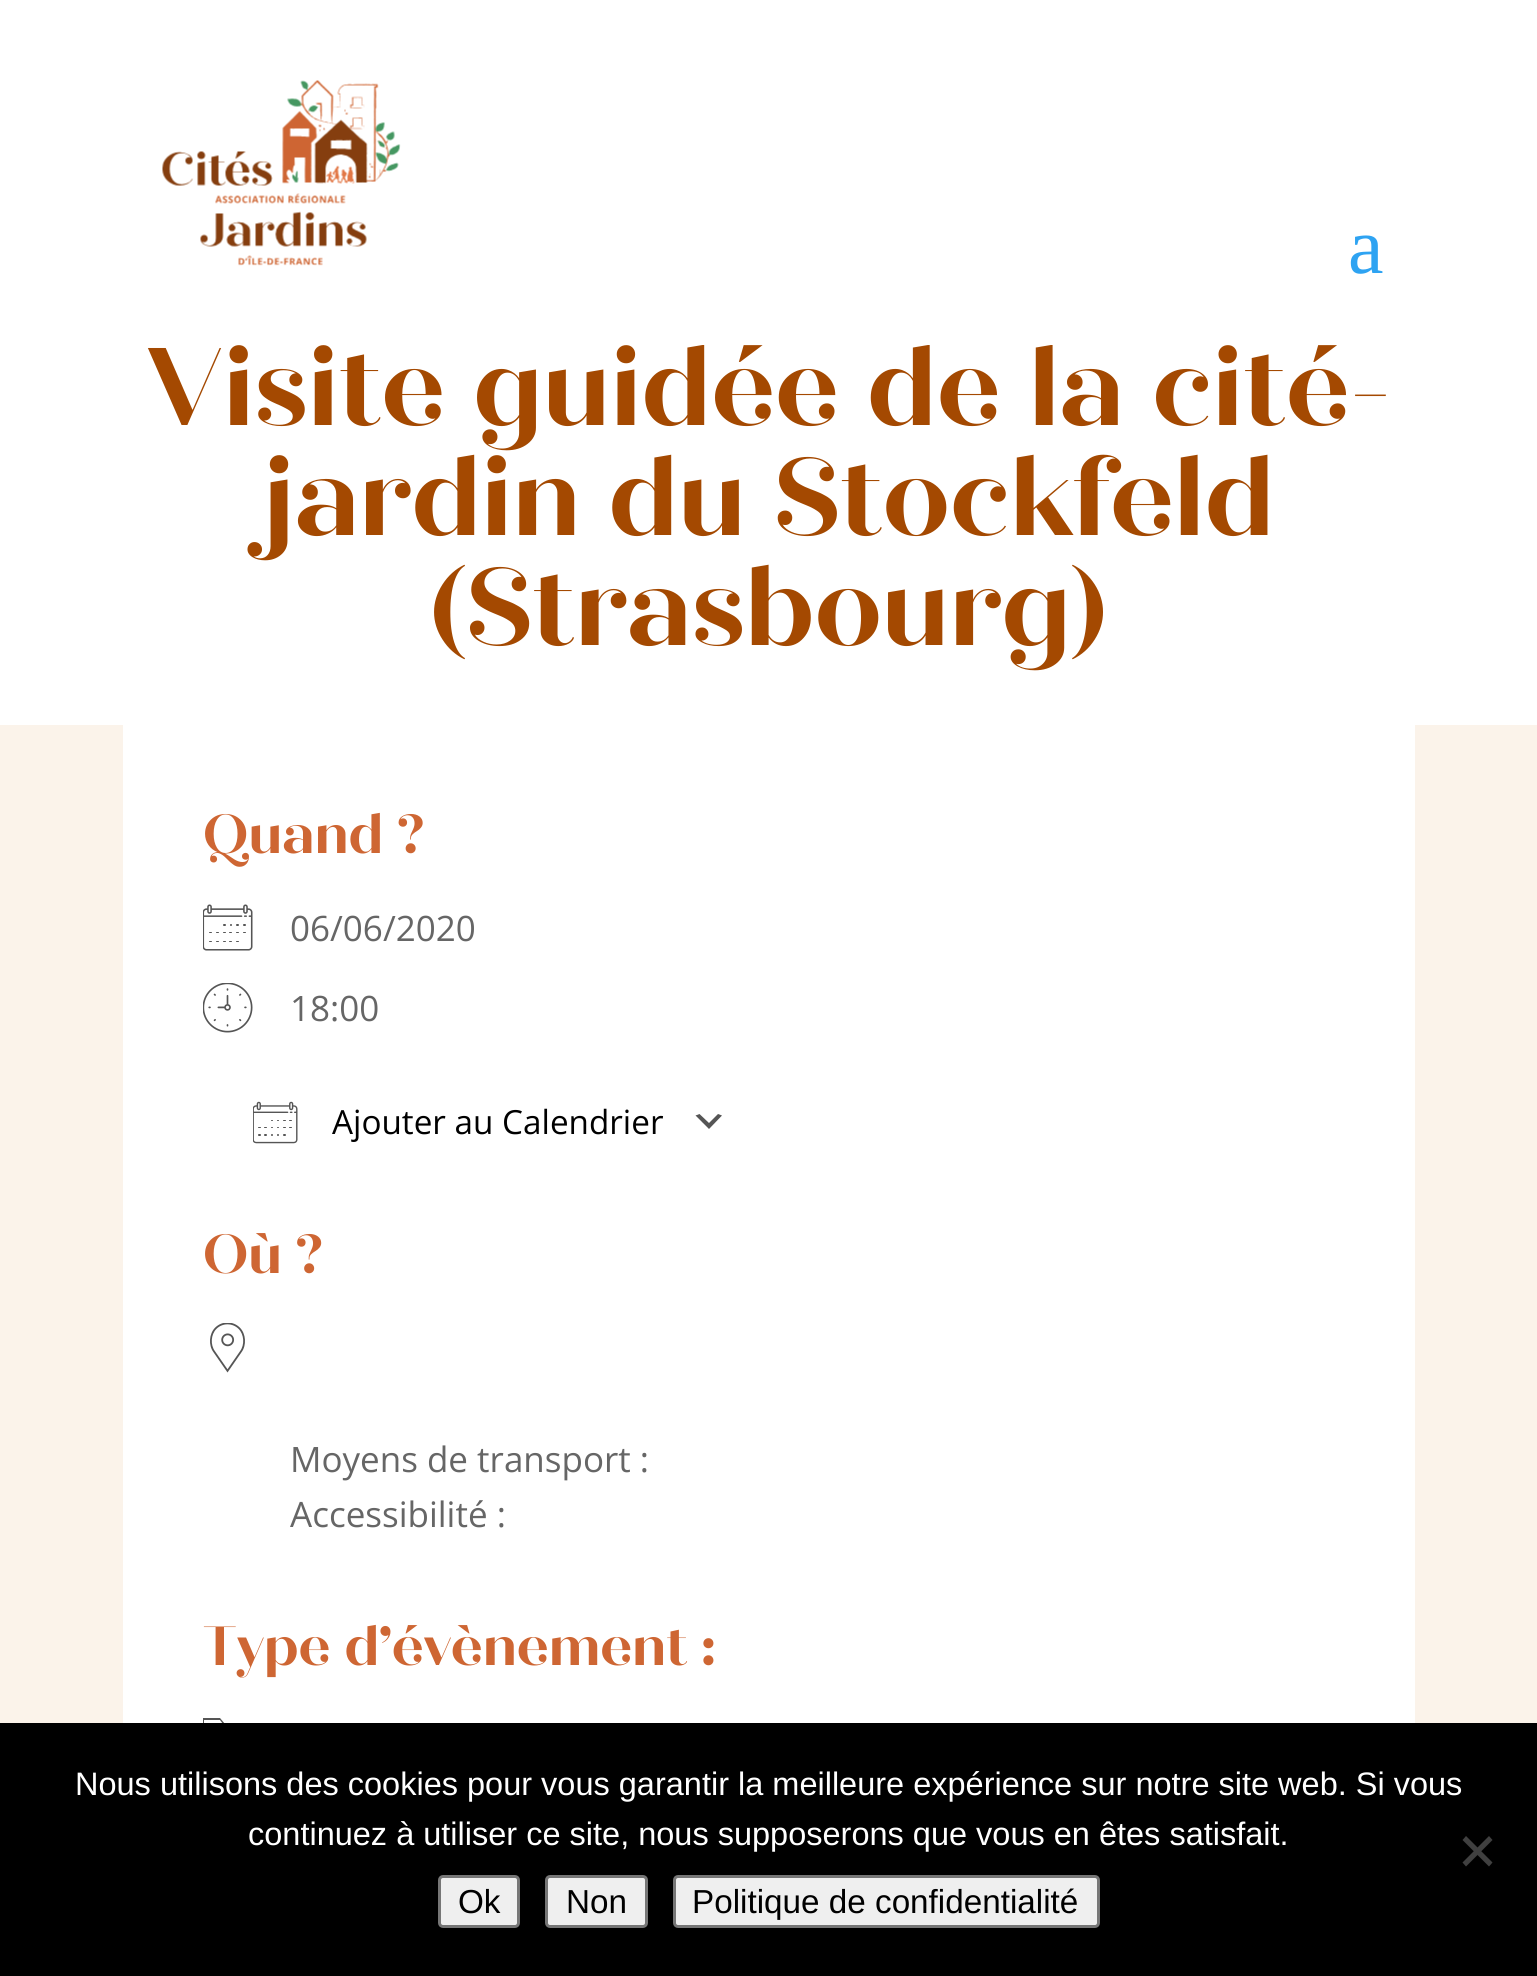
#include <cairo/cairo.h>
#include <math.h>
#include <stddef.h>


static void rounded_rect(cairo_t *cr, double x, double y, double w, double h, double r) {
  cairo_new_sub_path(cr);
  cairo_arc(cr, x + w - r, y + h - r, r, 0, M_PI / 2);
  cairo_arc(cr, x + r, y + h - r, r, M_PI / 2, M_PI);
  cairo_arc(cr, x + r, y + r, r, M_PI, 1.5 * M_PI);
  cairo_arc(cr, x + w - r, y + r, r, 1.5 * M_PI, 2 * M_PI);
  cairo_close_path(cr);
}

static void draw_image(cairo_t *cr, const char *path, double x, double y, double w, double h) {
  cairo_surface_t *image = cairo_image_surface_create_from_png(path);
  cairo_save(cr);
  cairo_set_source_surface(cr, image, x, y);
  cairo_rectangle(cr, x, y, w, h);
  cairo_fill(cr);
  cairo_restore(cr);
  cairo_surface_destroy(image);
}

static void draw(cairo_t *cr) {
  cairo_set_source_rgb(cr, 1, 1, 1);
  cairo_paint(cr);
  draw_image(cr, "images/1.png", 162, 80, 239, 186);
  cairo_set_source_rgb(cr, 251 / 255.0, 243 / 255.0, 234 / 255.0);
  cairo_rectangle(cr, 0, 725, 1537, 998);
  cairo_fill(cr);
  cairo_set_source_rgb(cr, 1, 1, 1);
  cairo_rectangle(cr, 123, 725, 1292, 998);
  cairo_fill(cr);
  draw_image(cr, "images/2.png", 203, 904, 50, 47);
  draw_image(cr, "images/3.png", 203, 983, 50, 50);
  cairo_set_source_rgb(cr, 85 / 255.0, 85 / 255.0, 85 / 255.0);
  cairo_new_path(cr);
  cairo_move_to(cr, 699.5, 1114);
  cairo_line_to(cr, 709, 1123);
  cairo_line_to(cr, 718, 1114);
  cairo_line_to(cr, 722, 1115.5);
  cairo_line_to(cr, 709, 1129);
  cairo_line_to(cr, 695.5, 1115.5);
  cairo_close_path(cr);
  cairo_fill(cr);
  draw_image(cr, "images/4.png", 253, 1101, 45, 43);
  draw_image(cr, "images/5.png", 210, 1323, 35, 50);
  cairo_save(cr);
  cairo_rectangle(cr, 203, 1715, 50, 50);
  cairo_clip(cr);
  cairo_new_path(cr);
  cairo_move_to(cr, 225, 1724);
  cairo_line_to(cr, 220, 1718);
  cairo_line_to(cr, 202, 1718);
  cairo_line_to(cr, 202, 1762);
  cairo_line_to(cr, 252, 1762);
  cairo_line_to(cr, 252, 1724);
  cairo_close_path(cr);
  cairo_move_to(cr, 251, 1725);
  cairo_line_to(cr, 251, 1730);
  cairo_line_to(cr, 229, 1730);
  cairo_line_to(cr, 226, 1725);
  cairo_close_path(cr);
  cairo_move_to(cr, 204, 1760);
  cairo_line_to(cr, 204, 1720);
  cairo_line_to(cr, 220, 1720);
  cairo_line_to(cr, 228, 1731);
  cairo_line_to(cr, 251, 1731);
  cairo_line_to(cr, 251, 1760);
  cairo_close_path(cr);
  cairo_fill(cr);
  cairo_restore(cr);
  cairo_set_source_rgb(cr, 0, 0, 0);
  cairo_rectangle(cr, 0, 1723, 1537, 253);
  cairo_fill(cr);
  cairo_set_source_rgb(cr, 64 / 255.0, 64 / 255.0, 64 / 255.0);
  cairo_new_path(cr);
  cairo_move_to(cr, 1489, 1836);
  cairo_line_to(cr, 1492.5, 1840);
  cairo_line_to(cr, 1466, 1866.5);
  cairo_line_to(cr, 1462.5, 1862.5);
  cairo_close_path(cr);
  cairo_fill(cr);
  cairo_new_path(cr);
  cairo_move_to(cr, 1462.5, 1840);
  cairo_line_to(cr, 1466, 1836);
  cairo_line_to(cr, 1492.5, 1862.5);
  cairo_line_to(cr, 1489, 1866.5);
  cairo_close_path(cr);
  cairo_fill(cr);
  cairo_set_source_rgb(cr, 239 / 255.0, 239 / 255.0, 239 / 255.0);
  rounded_rect(cr, 439.5, 1876.5, 79, 50, 3.5);
  cairo_fill_preserve(cr);
  cairo_set_source_rgb(cr, 118 / 255.0, 118 / 255.0, 118 / 255.0);
  cairo_set_line_width(cr, 3);
  cairo_stroke(cr);
  cairo_set_source_rgb(cr, 239 / 255.0, 239 / 255.0, 239 / 255.0);
  rounded_rect(cr, 546.5, 1876.5, 100, 50, 3.5);
  cairo_fill_preserve(cr);
  cairo_set_source_rgb(cr, 118 / 255.0, 118 / 255.0, 118 / 255.0);
  cairo_stroke(cr);
  cairo_set_source_rgb(cr, 239 / 255.0, 239 / 255.0, 239 / 255.0);
  rounded_rect(cr, 674.5, 1876.5, 424, 50, 3.5);
  cairo_fill_preserve(cr);
  cairo_set_source_rgb(cr, 118 / 255.0, 118 / 255.0, 118 / 255.0);
  cairo_stroke(cr);
  cairo_select_font_face(cr, "Liberation Serif", CAIRO_FONT_SLANT_NORMAL, CAIRO_FONT_WEIGHT_NORMAL);
  cairo_set_font_size(cr, 80);
  cairo_set_source_rgb(cr, 46 / 255.0, 163 / 255.0, 242 / 255.0);
  cairo_move_to(cr, 1348, 273);
  cairo_show_text(cr, "a");
  cairo_select_font_face(cr, "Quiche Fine", CAIRO_FONT_SLANT_NORMAL, CAIRO_FONT_WEIGHT_BOLD);
  cairo_set_font_size(cr, 110);
  cairo_set_source_rgb(cr, 164 / 255.0, 73 / 255.0, 1 / 255.0);
  cairo_move_to(cr, 146, 425);
  cairo_show_text(cr, "Visite guidée de la cité-");
  cairo_set_source_rgb(cr, 1, 1, 1);
  cairo_rectangle(cr, 702, 344, 351, 1);
  cairo_fill(cr);
  cairo_set_source_rgb(cr, 164 / 255.0, 73 / 255.0, 1 / 255.0);
  cairo_move_to(cr, 263, 535);
  cairo_show_text(cr, "jardin du Stockfeld");
  cairo_move_to(cr, 429, 645);
  cairo_show_text(cr, "(Strasbourg)");
  cairo_set_font_size(cr, 55);
  cairo_set_source_rgb(cr, 206 / 255.0, 102 / 255.0, 51 / 255.0);
  cairo_move_to(cr, 203, 853);
  cairo_show_text(cr, "Quand ?");
  cairo_select_font_face(cr, "Open Sans", CAIRO_FONT_SLANT_NORMAL, CAIRO_FONT_WEIGHT_NORMAL);
  cairo_set_font_size(cr, 35);
  cairo_set_source_rgb(cr, 102 / 255.0, 102 / 255.0, 102 / 255.0);
  cairo_move_to(cr, 290, 941);
  cairo_show_text(cr, "06/06/2020");
  cairo_move_to(cr, 290, 1021);
  cairo_show_text(cr, "18:00");
  cairo_set_font_size(cr, 33.25);
  cairo_set_source_rgb(cr, 0, 0, 0);
  cairo_move_to(cr, 332, 1134);
  cairo_show_text(cr, "Ajouter au Calendrier");
  cairo_select_font_face(cr, "Quiche Fine", CAIRO_FONT_SLANT_NORMAL, CAIRO_FONT_WEIGHT_BOLD);
  cairo_set_font_size(cr, 55);
  cairo_set_source_rgb(cr, 206 / 255.0, 102 / 255.0, 51 / 255.0);
  cairo_move_to(cr, 203, 1273);
  cairo_show_text(cr, "Où ?");
  cairo_select_font_face(cr, "Open Sans", CAIRO_FONT_SLANT_NORMAL, CAIRO_FONT_WEIGHT_NORMAL);
  cairo_set_font_size(cr, 35);
  cairo_set_source_rgb(cr, 102 / 255.0, 102 / 255.0, 102 / 255.0);
  cairo_move_to(cr, 290, 1472);
  cairo_show_text(cr, "Moyens de transport :");
  cairo_move_to(cr, 290, 1527);
  cairo_show_text(cr, "Accessibilité :");
  cairo_select_font_face(cr, "Quiche Fine", CAIRO_FONT_SLANT_NORMAL, CAIRO_FONT_WEIGHT_BOLD);
  cairo_set_font_size(cr, 55);
  cairo_set_source_rgb(cr, 206 / 255.0, 102 / 255.0, 51 / 255.0);
  cairo_move_to(cr, 203, 1665);
  cairo_show_text(cr, "Type d’évènement :");
  cairo_select_font_face(cr, "Liberation Sans", CAIRO_FONT_SLANT_NORMAL, CAIRO_FONT_WEIGHT_NORMAL);
  cairo_set_font_size(cr, 32.5);
  cairo_set_source_rgb(cr, 1, 1, 1);
  cairo_move_to(cr, 75, 1795);
  cairo_show_text(cr, "Nous utilisons des cookies pour vous garantir la meilleure expérience sur notre site web. Si vous");
  cairo_move_to(cr, 248, 1845);
  cairo_show_text(cr, "continuez à utiliser ce site, nous supposerons que vous en êtes satisfait.");
  cairo_set_font_size(cr, 33.25);
  cairo_set_source_rgb(cr, 0, 0, 0);
  cairo_move_to(cr, 458, 1913);
  cairo_show_text(cr, "Ok");
  cairo_move_to(cr, 566, 1913);
  cairo_show_text(cr, "Non");
  cairo_move_to(cr, 692, 1913);
  cairo_show_text(cr, "Politique de confidentialité");
}

int main(void) {
  cairo_surface_t *surface = cairo_image_surface_create(CAIRO_FORMAT_RGB24, 1537, 1976);
  cairo_t *cr = cairo_create(surface);
  cairo_font_options_t *options = cairo_font_options_create();
  cairo_font_options_set_hint_metrics(options, CAIRO_HINT_METRICS_OFF);
  cairo_font_options_set_hint_style(options, CAIRO_HINT_STYLE_NONE);
  cairo_set_font_options(cr, options);
  cairo_set_miter_limit(cr, 4);
  draw(cr);
  cairo_surface_write_to_png(surface, "out.png");
  cairo_font_options_destroy(options);
  cairo_destroy(cr);
  cairo_surface_destroy(surface);
  return 0;
}
